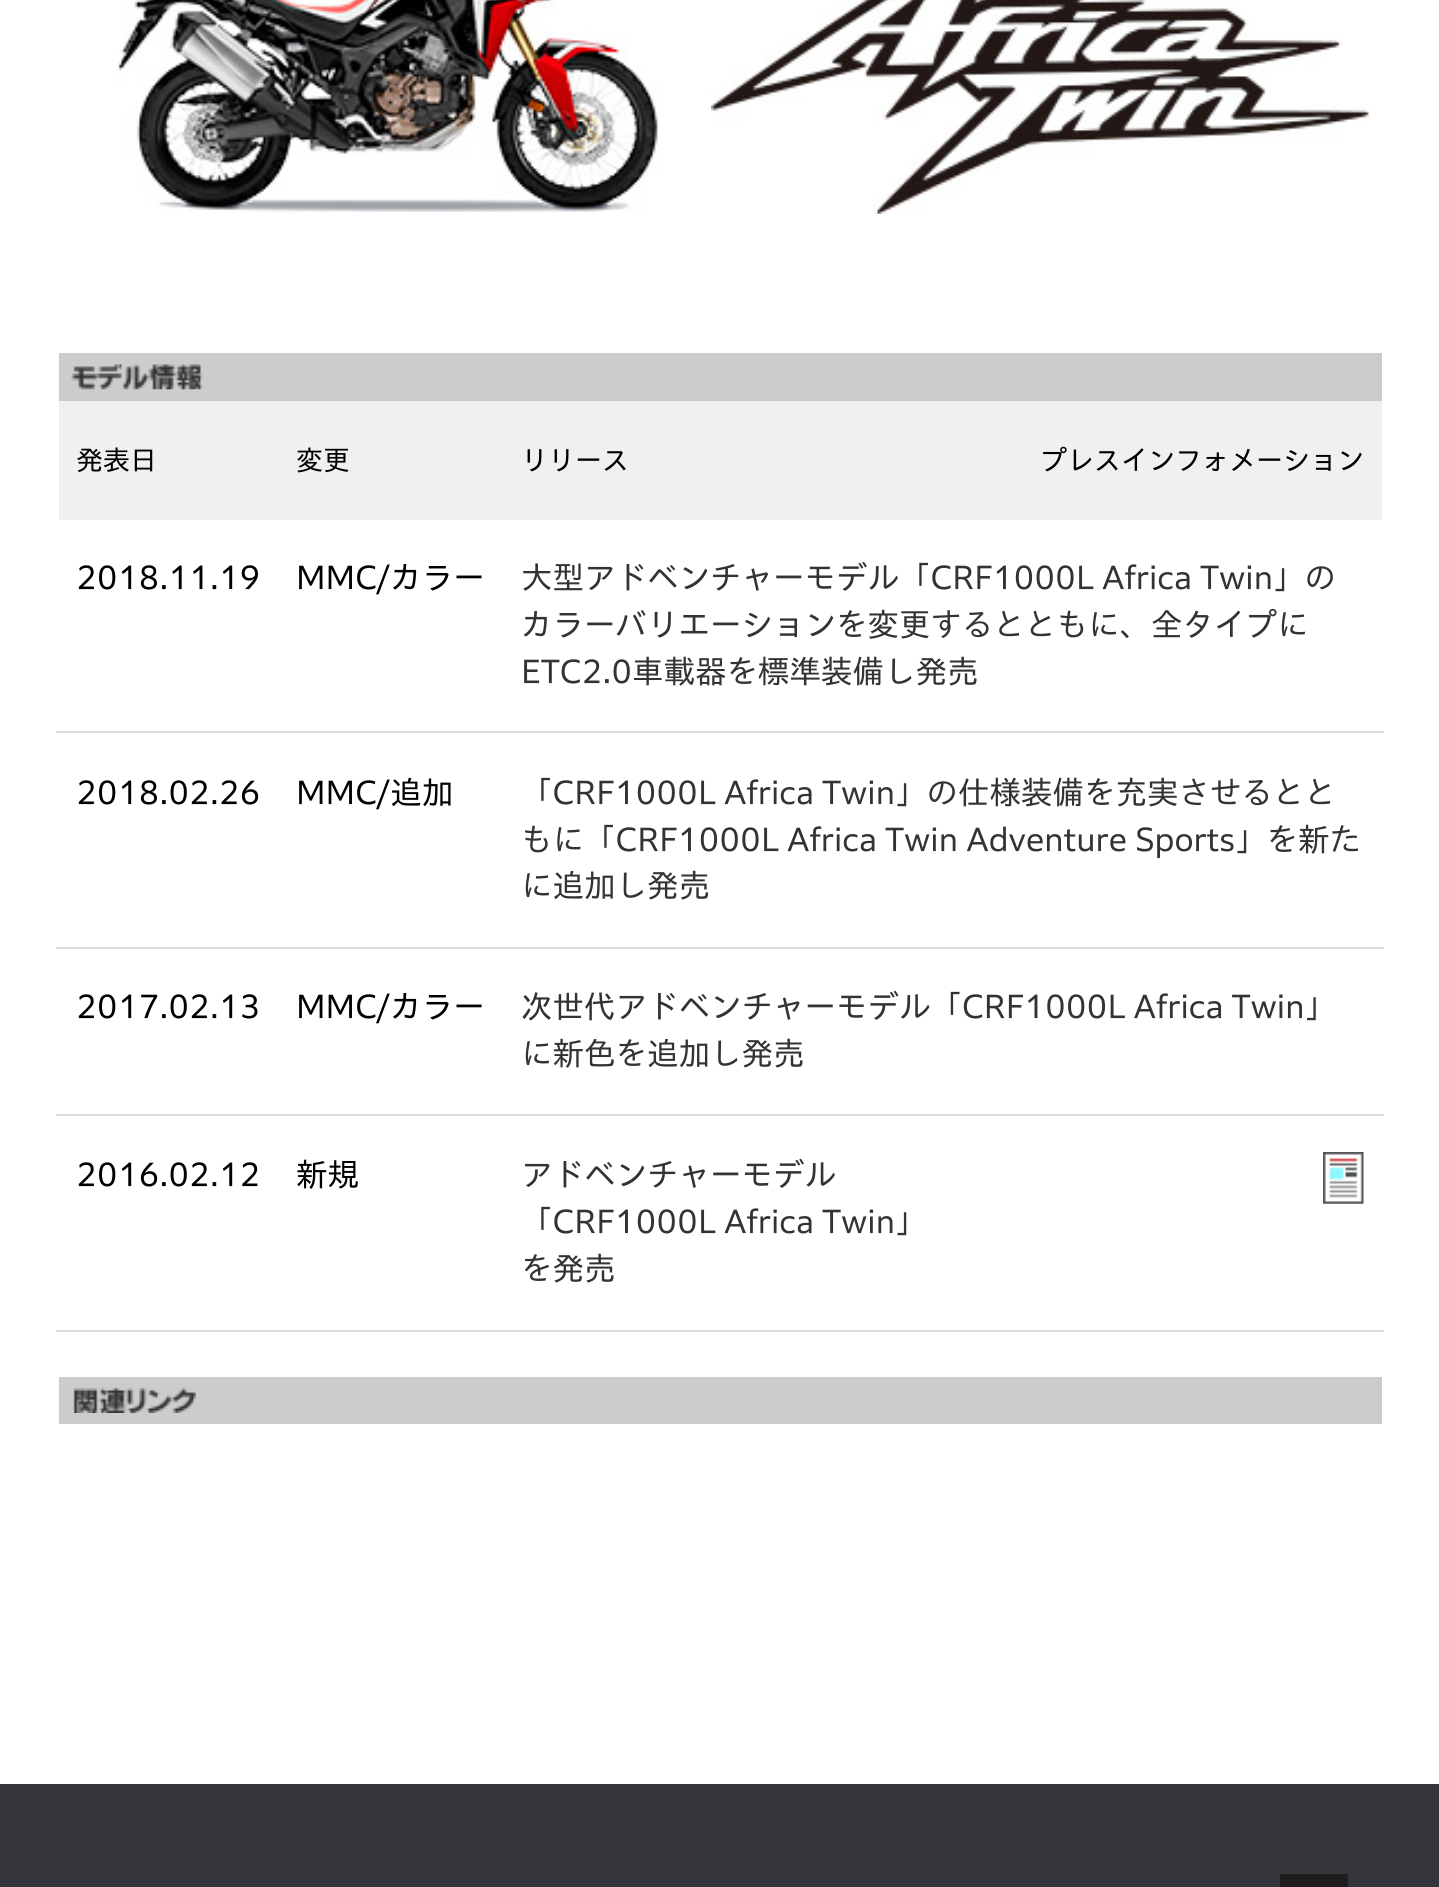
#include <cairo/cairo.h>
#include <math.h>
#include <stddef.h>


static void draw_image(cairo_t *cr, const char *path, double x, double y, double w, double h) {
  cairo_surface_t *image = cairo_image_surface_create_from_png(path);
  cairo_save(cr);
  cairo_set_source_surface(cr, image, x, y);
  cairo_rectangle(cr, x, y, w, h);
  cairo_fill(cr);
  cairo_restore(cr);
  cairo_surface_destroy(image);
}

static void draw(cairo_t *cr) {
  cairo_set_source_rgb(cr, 1, 1, 1);
  cairo_paint(cr);
  draw_image(cr, "images/1.png", 118, 0, 545, 212);
  draw_image(cr, "images/2.png", 711, 0, 659, 214);
  cairo_set_source_rgb(cr, 204 / 255.0, 204 / 255.0, 204 / 255.0);
  cairo_rectangle(cr, 59, 353, 1323, 48);
  cairo_fill(cr);
  draw_image(cr, "images/3.png", 71, 364, 132, 26);
  cairo_set_source_rgb(cr, 221 / 255.0, 221 / 255.0, 221 / 255.0);
  cairo_rectangle(cr, 56, 1330, 1328, 2);
  cairo_fill(cr);
  cairo_set_source_rgb(cr, 240 / 255.0, 240 / 255.0, 240 / 255.0);
  cairo_rectangle(cr, 59, 401, 1323, 119);
  cairo_fill(cr);
  cairo_set_source_rgb(cr, 221 / 255.0, 221 / 255.0, 221 / 255.0);
  cairo_rectangle(cr, 56, 731, 1328, 2);
  cairo_fill(cr);
  cairo_rectangle(cr, 56, 947, 1328, 2);
  cairo_fill(cr);
  cairo_rectangle(cr, 56, 1114, 1328, 2);
  cairo_fill(cr);
  draw_image(cr, "images/4.png", 1323, 1152, 41, 52);
  cairo_set_source_rgb(cr, 204 / 255.0, 204 / 255.0, 204 / 255.0);
  cairo_rectangle(cr, 59, 1377, 1323, 47);
  cairo_fill(cr);
  draw_image(cr, "images/5.png", 73, 1388, 123, 25);
  cairo_set_source_rgb(cr, 53 / 255.0, 54 / 255.0, 59 / 255.0);
  cairo_rectangle(cr, 0, 1784, 1439, 103);
  cairo_fill(cr);
  cairo_set_source_rgb(cr, 29 / 255.0, 29 / 255.0, 29 / 255.0);
  cairo_rectangle(cr, 1280, 1874, 68, 13);
  cairo_fill(cr);
  cairo_select_font_face(cr, "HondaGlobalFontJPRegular", CAIRO_FONT_SLANT_NORMAL, CAIRO_FONT_WEIGHT_NORMAL);
  cairo_set_font_size(cr, 27);
  cairo_set_source_rgb(cr, 0, 0, 0);
  cairo_move_to(cr, 76, 470);
  cairo_show_text(cr, "発表日");
  cairo_move_to(cr, 296, 470);
  cairo_show_text(cr, "変更");
  cairo_move_to(cr, 521, 470);
  cairo_show_text(cr, "リリース");
  cairo_move_to(cr, 1040, 470);
  cairo_show_text(cr, "プレスインフォメーション");
  cairo_set_font_size(cr, 31.5);
  cairo_move_to(cr, 76, 589);
  cairo_show_text(cr, "2018.11.19");
  cairo_move_to(cr, 296, 589);
  cairo_show_text(cr, "MMC/カラー");
  cairo_set_source_rgb(cr, 51 / 255.0, 51 / 255.0, 51 / 255.0);
  cairo_move_to(cr, 521, 589);
  cairo_show_text(cr, "大型アドベンチャーモデル「CRF1000L Africa Twin」の");
  cairo_move_to(cr, 521, 636);
  cairo_show_text(cr, "カラーバリエーションを変更するとともに、全タイプに");
  cairo_move_to(cr, 521, 683);
  cairo_show_text(cr, "ETC2.0車載器を標準装備し発売");
  cairo_set_source_rgb(cr, 0, 0, 0);
  cairo_move_to(cr, 76, 804);
  cairo_show_text(cr, "2018.02.26");
  cairo_move_to(cr, 296, 804);
  cairo_show_text(cr, "MMC/追加");
  cairo_set_source_rgb(cr, 51 / 255.0, 51 / 255.0, 51 / 255.0);
  cairo_move_to(cr, 521, 804);
  cairo_show_text(cr, "「CRF1000L Africa Twin」の仕様装備を充実させるとと");
  cairo_move_to(cr, 521, 851);
  cairo_show_text(cr, "もに「CRF1000L Africa Twin Adventure Sports」を新た");
  cairo_move_to(cr, 521, 897);
  cairo_show_text(cr, "に追加し発売");
  cairo_set_source_rgb(cr, 0, 0, 0);
  cairo_move_to(cr, 76, 1018);
  cairo_show_text(cr, "2017.02.13");
  cairo_move_to(cr, 296, 1018);
  cairo_show_text(cr, "MMC/カラー");
  cairo_set_source_rgb(cr, 51 / 255.0, 51 / 255.0, 51 / 255.0);
  cairo_move_to(cr, 521, 1018);
  cairo_show_text(cr, "次世代アドベンチャーモデル「CRF1000L Africa Twin」");
  cairo_move_to(cr, 521, 1065);
  cairo_show_text(cr, "に新色を追加し発売");
  cairo_set_source_rgb(cr, 0, 0, 0);
  cairo_move_to(cr, 76, 1186);
  cairo_show_text(cr, "2016.02.12");
  cairo_move_to(cr, 296, 1186);
  cairo_show_text(cr, "新規");
  cairo_set_source_rgb(cr, 51 / 255.0, 51 / 255.0, 51 / 255.0);
  cairo_move_to(cr, 521, 1186);
  cairo_show_text(cr, "アドベンチャーモデル");
  cairo_move_to(cr, 521, 1233);
  cairo_show_text(cr, "「CRF1000L Africa Twin」");
  cairo_move_to(cr, 521, 1280);
  cairo_show_text(cr, "を発売");
}

int main(void) {
  cairo_surface_t *surface = cairo_image_surface_create(CAIRO_FORMAT_RGB24, 1439, 1887);
  cairo_t *cr = cairo_create(surface);
  cairo_font_options_t *options = cairo_font_options_create();
  cairo_font_options_set_hint_metrics(options, CAIRO_HINT_METRICS_OFF);
  cairo_font_options_set_hint_style(options, CAIRO_HINT_STYLE_NONE);
  cairo_set_font_options(cr, options);
  cairo_set_miter_limit(cr, 4);
  draw(cr);
  cairo_surface_write_to_png(surface, "out.png");
  cairo_font_options_destroy(options);
  cairo_destroy(cr);
  cairo_surface_destroy(surface);
  return 0;
}
